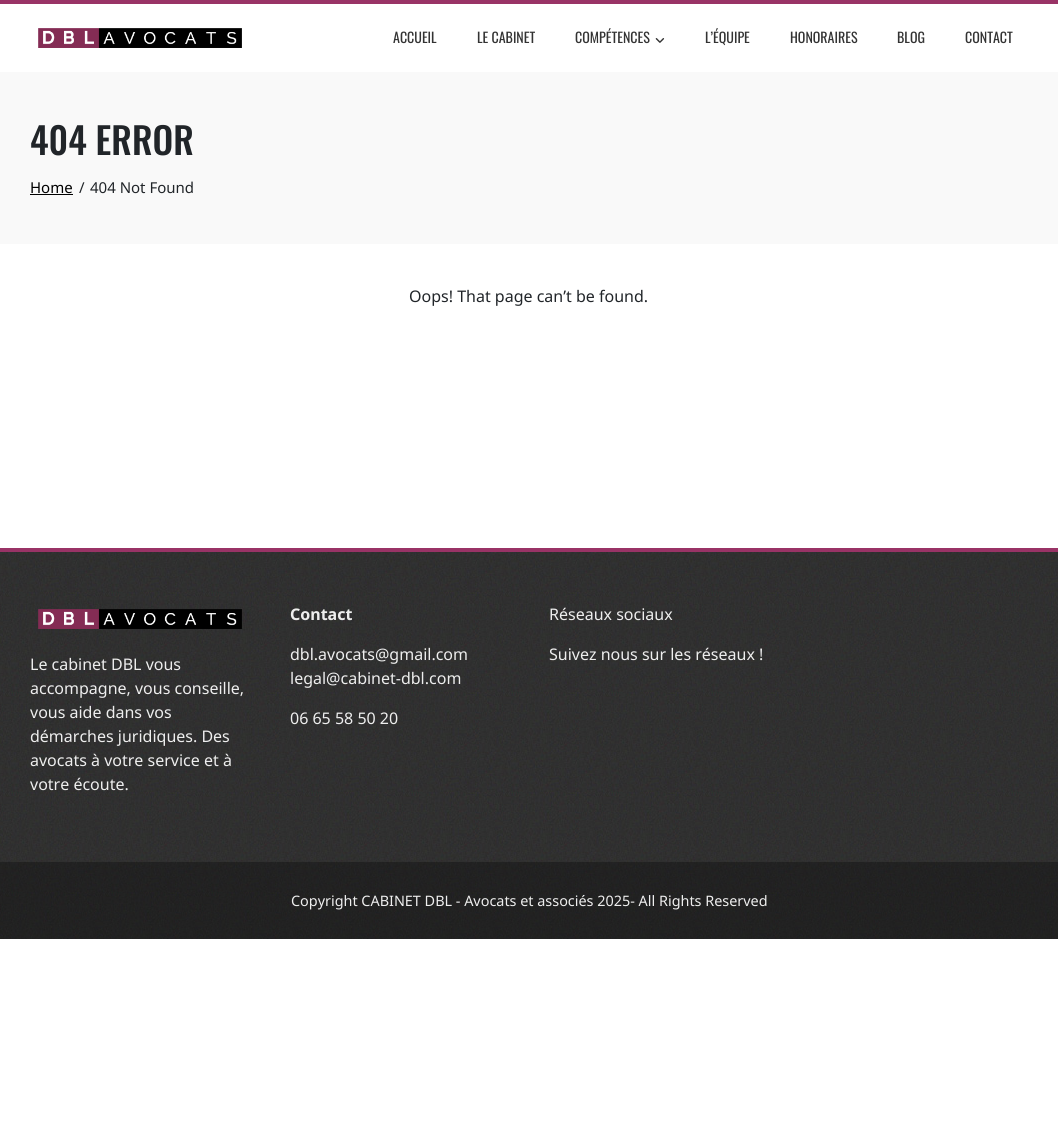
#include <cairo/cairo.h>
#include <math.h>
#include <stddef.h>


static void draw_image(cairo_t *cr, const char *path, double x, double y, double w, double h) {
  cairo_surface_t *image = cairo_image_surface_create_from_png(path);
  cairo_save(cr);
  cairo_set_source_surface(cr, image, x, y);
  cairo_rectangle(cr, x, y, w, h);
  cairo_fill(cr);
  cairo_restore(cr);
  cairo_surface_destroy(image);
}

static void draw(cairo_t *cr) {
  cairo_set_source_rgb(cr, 1, 1, 1);
  cairo_paint(cr);
  cairo_set_source_rgb(cr, 153 / 255.0, 51 / 255.0, 102 / 255.0);
  cairo_rectangle(cr, 0, 0, 1058, 4);
  cairo_fill(cr);
  draw_image(cr, "images/1.png", 38, 28, 204, 20);
  draw_image(cr, "images/2.png", 655, 38, 10, 5);
  cairo_set_source_rgb(cr, 249 / 255.0, 249 / 255.0, 249 / 255.0);
  cairo_rectangle(cr, 0, 72, 1058, 172);
  cairo_fill(cr);
  cairo_set_source_rgb(cr, 0, 0, 0);
  cairo_rectangle(cr, 30, 194, 43, 1);
  cairo_fill(cr);
  draw_image(cr, "images/3.png", 0, 552, 1058, 387);
  cairo_set_source_rgb(cr, 153 / 255.0, 51 / 255.0, 102 / 255.0);
  cairo_rectangle(cr, 0, 548, 1058, 4);
  cairo_fill(cr);
  draw_image(cr, "images/4.png", 38, 609, 204, 20);
  cairo_set_source_rgba(cr, 0, 0, 0, 0.3);
  cairo_rectangle(cr, 0, 862, 1058, 77);
  cairo_fill(cr);
  cairo_select_font_face(cr, "Oswald", CAIRO_FONT_SLANT_NORMAL, CAIRO_FONT_WEIGHT_NORMAL);
  cairo_set_font_size(cr, 14);
  cairo_set_source_rgb(cr, 51 / 255.0, 51 / 255.0, 51 / 255.0);
  cairo_move_to(cr, 393, 43);
  cairo_show_text(cr, "ACCUEIL");
  cairo_move_to(cr, 477, 43);
  cairo_show_text(cr, "LE CABINET");
  cairo_move_to(cr, 575, 43);
  cairo_show_text(cr, "COMPÉTENCES");
  cairo_move_to(cr, 705, 43);
  cairo_show_text(cr, "L’ÉQUIPE");
  cairo_move_to(cr, 790, 43);
  cairo_show_text(cr, "HONORAIRES");
  cairo_move_to(cr, 897, 43);
  cairo_show_text(cr, "BLOG");
  cairo_move_to(cr, 965, 43);
  cairo_show_text(cr, "CONTACT");
  cairo_select_font_face(cr, "Oswald Medium", CAIRO_FONT_SLANT_NORMAL, CAIRO_FONT_WEIGHT_NORMAL);
  cairo_set_font_size(cr, 36.75);
  cairo_set_source_rgb(cr, 33 / 255.0, 37 / 255.0, 41 / 255.0);
  cairo_move_to(cr, 30, 155);
  cairo_show_text(cr, "404 ERROR");
  cairo_select_font_face(cr, "Noto Sans", CAIRO_FONT_SLANT_NORMAL, CAIRO_FONT_WEIGHT_NORMAL);
  cairo_set_font_size(cr, 15);
  cairo_set_source_rgb(cr, 0, 0, 0);
  cairo_move_to(cr, 30, 193);
  cairo_show_text(cr, "Home");
  cairo_set_source_rgb(cr, 33 / 255.0, 37 / 255.0, 41 / 255.0);
  cairo_move_to(cr, 79, 193);
  cairo_show_text(cr, "/");
  cairo_move_to(cr, 90, 193);
  cairo_show_text(cr, "404 Not Found");
  cairo_set_font_size(cr, 16);
  cairo_move_to(cr, 409, 302);
  cairo_show_text(cr, "Oops! That page can’t be found.");
  cairo_set_source_rgb(cr, 238 / 255.0, 238 / 255.0, 238 / 255.0);
  cairo_move_to(cr, 30, 670);
  cairo_show_text(cr, "Le cabinet DBL vous");
  cairo_move_to(cr, 30, 694);
  cairo_show_text(cr, "accompagne, vous conseille,");
  cairo_move_to(cr, 30, 718);
  cairo_show_text(cr, "vous aide dans vos");
  cairo_move_to(cr, 30, 742);
  cairo_show_text(cr, "démarches juridiques. Des");
  cairo_move_to(cr, 30, 766);
  cairo_show_text(cr, "avocats à votre service et à");
  cairo_move_to(cr, 30, 790);
  cairo_show_text(cr, "votre écoute.");
  cairo_select_font_face(cr, "Noto Sans", CAIRO_FONT_SLANT_NORMAL, CAIRO_FONT_WEIGHT_BOLD);
  cairo_move_to(cr, 290, 620);
  cairo_show_text(cr, "Contact");
  cairo_select_font_face(cr, "Noto Sans", CAIRO_FONT_SLANT_NORMAL, CAIRO_FONT_WEIGHT_NORMAL);
  cairo_move_to(cr, 290, 660);
  cairo_show_text(cr, "dbl.avocats@gmail.com");
  cairo_move_to(cr, 290, 684);
  cairo_show_text(cr, "legal@cabinet-dbl.com");
  cairo_move_to(cr, 290, 724);
  cairo_show_text(cr, "06 65 58 50 20");
  cairo_move_to(cr, 549, 620);
  cairo_show_text(cr, "Réseaux sociaux");
  cairo_move_to(cr, 549, 660);
  cairo_show_text(cr, "Suivez nous sur les réseaux !");
  cairo_set_font_size(cr, 14.4);
  cairo_move_to(cr, 291, 906);
  cairo_show_text(cr, "Copyright CABINET DBL - Avocats et associés 2025- All Rights Reserved");
}

int main(void) {
  cairo_surface_t *surface = cairo_image_surface_create(CAIRO_FORMAT_RGB24, 1058, 1122);
  cairo_t *cr = cairo_create(surface);
  cairo_font_options_t *options = cairo_font_options_create();
  cairo_font_options_set_hint_metrics(options, CAIRO_HINT_METRICS_OFF);
  cairo_font_options_set_hint_style(options, CAIRO_HINT_STYLE_NONE);
  cairo_set_font_options(cr, options);
  cairo_set_miter_limit(cr, 4);
  draw(cr);
  cairo_surface_write_to_png(surface, "out.png");
  cairo_font_options_destroy(options);
  cairo_destroy(cr);
  cairo_surface_destroy(surface);
  return 0;
}
